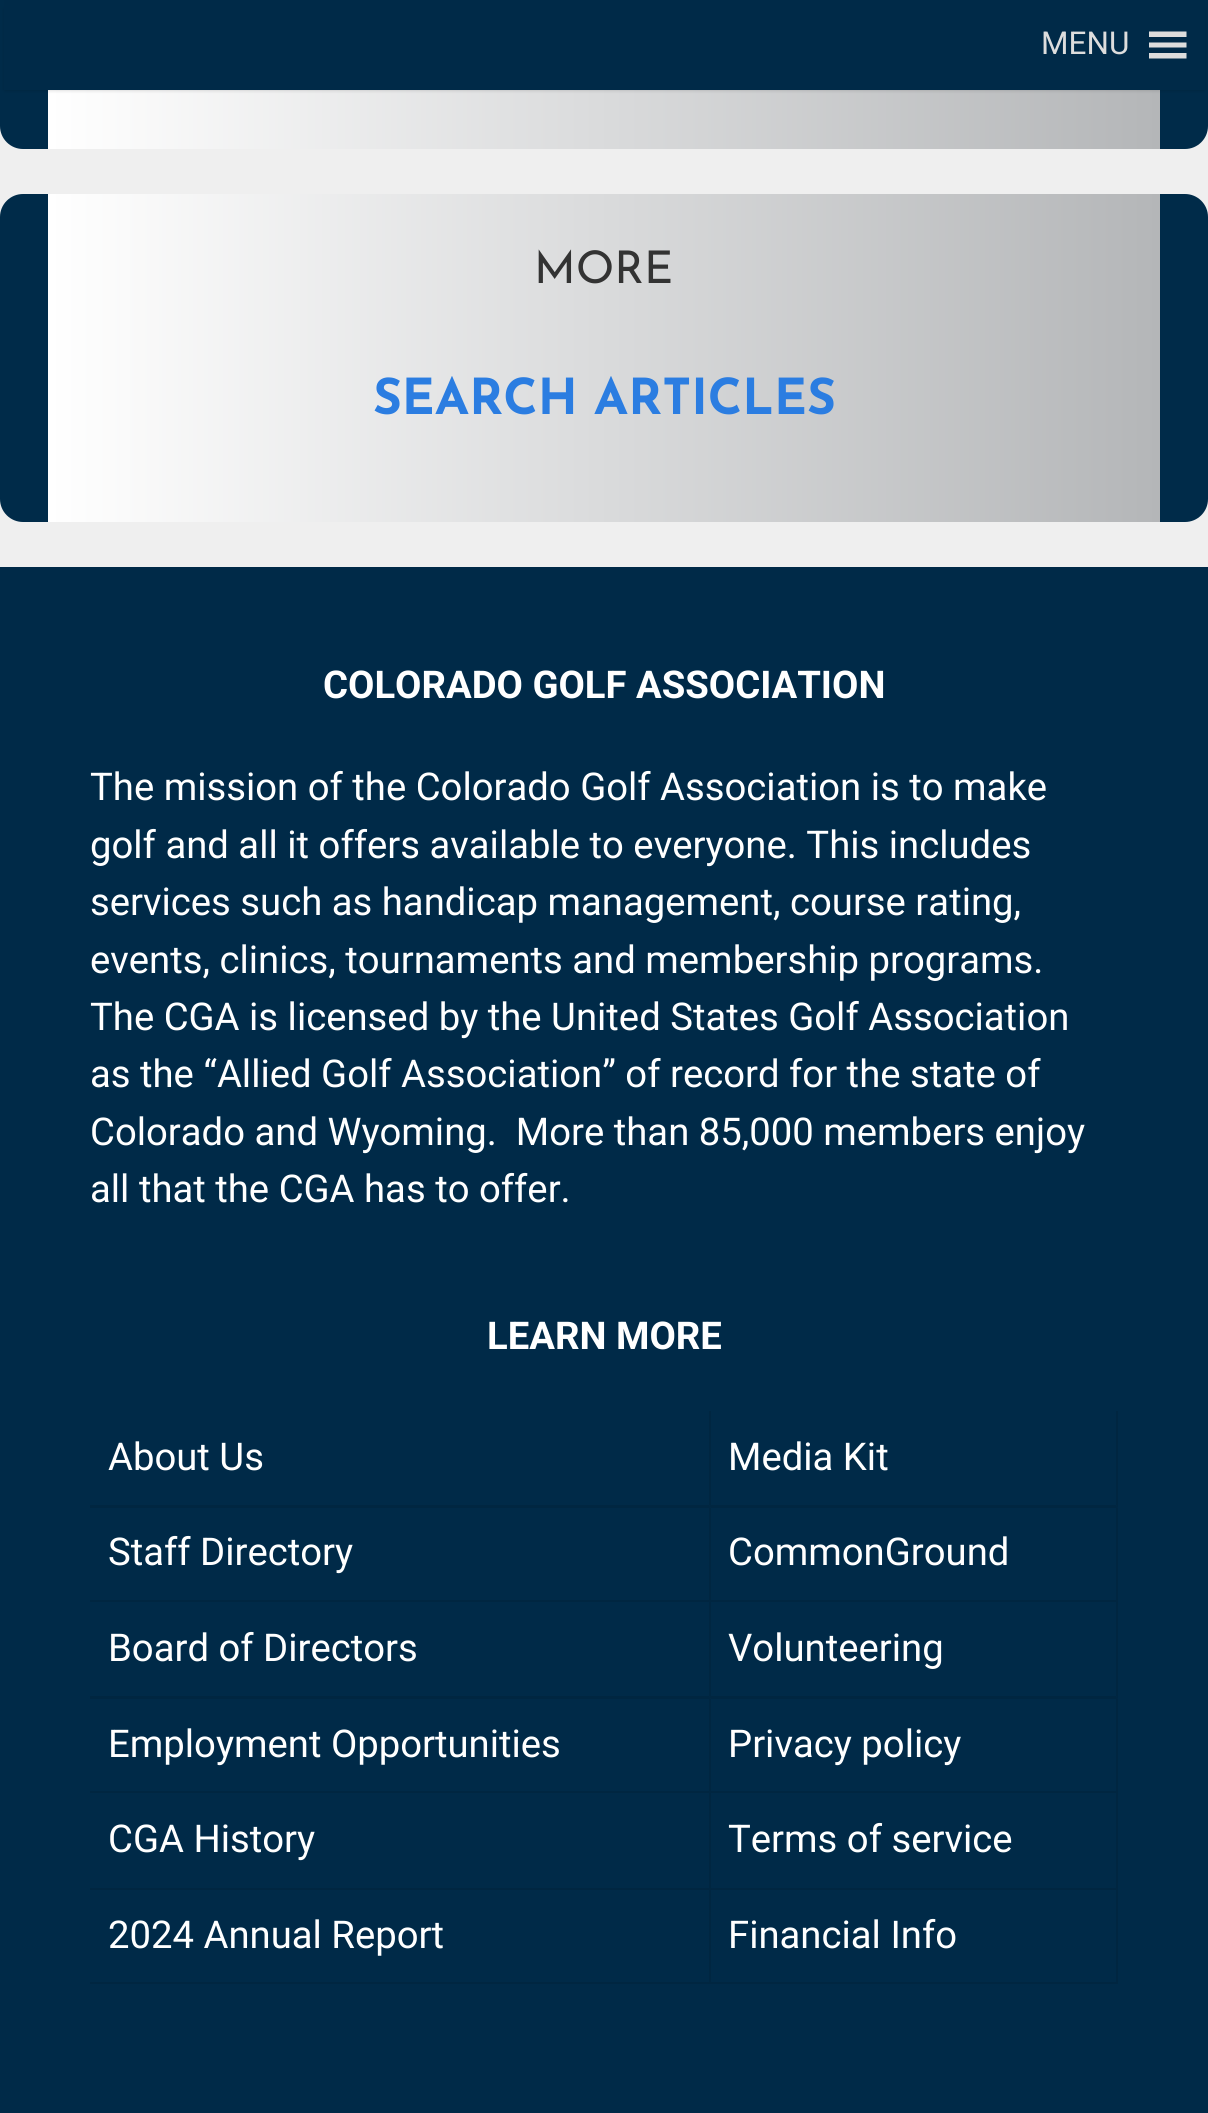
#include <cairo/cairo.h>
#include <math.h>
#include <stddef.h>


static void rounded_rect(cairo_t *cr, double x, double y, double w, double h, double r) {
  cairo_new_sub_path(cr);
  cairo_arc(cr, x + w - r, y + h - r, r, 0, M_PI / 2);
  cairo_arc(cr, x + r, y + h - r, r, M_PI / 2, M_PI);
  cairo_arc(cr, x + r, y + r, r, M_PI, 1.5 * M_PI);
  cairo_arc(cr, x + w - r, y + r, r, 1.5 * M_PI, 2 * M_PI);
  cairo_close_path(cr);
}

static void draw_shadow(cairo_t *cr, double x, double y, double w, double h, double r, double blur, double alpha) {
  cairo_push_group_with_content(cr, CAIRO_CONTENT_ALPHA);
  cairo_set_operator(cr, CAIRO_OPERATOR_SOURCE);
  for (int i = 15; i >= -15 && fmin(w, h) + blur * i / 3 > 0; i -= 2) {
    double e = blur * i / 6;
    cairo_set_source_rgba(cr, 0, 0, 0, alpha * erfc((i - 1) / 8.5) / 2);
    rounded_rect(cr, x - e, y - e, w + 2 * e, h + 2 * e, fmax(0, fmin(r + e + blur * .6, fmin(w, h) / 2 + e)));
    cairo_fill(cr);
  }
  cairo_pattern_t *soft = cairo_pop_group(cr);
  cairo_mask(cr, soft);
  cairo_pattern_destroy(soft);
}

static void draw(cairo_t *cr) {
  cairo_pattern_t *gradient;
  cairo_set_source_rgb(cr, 239 / 255.0, 239 / 255.0, 239 / 255.0);
  cairo_paint(cr);
  gradient = cairo_pattern_create_linear(1208, -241, 0, -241);
  cairo_pattern_add_color_stop_rgba(gradient, 0.04, 0, 43 / 255.0, 73 / 255.0, 1);
  cairo_pattern_add_color_stop_rgba(gradient, 0.04, 180 / 255.0, 182 / 255.0, 184 / 255.0, 1);
  cairo_pattern_add_color_stop_rgba(gradient, 0.96, 1, 1, 1, 1);
  cairo_pattern_add_color_stop_rgba(gradient, 0.96, 0, 43 / 255.0, 73 / 255.0, 1);
  cairo_set_source(cr, gradient);
  cairo_pattern_destroy(gradient);
  rounded_rect(cr, 0, -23, 1208, 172, 23);
  cairo_fill(cr);
  cairo_set_source_rgb(cr, 0, 0, 0);
  draw_shadow(cr, 5, 9, 1199, 81, 0, 2, 0.2);
  cairo_set_source_rgb(cr, 0, 42 / 255.0, 72 / 255.0);
  cairo_rectangle(cr, 4, 0, 1201, 90);
  cairo_fill(cr);
  cairo_set_source_rgb(cr, 221 / 255.0, 221 / 255.0, 221 / 255.0);
  cairo_new_path(cr);
  cairo_move_to(cr, 1149, 58.5);
  cairo_line_to(cr, 1186.5, 58.5);
  cairo_line_to(cr, 1186.5, 53);
  cairo_line_to(cr, 1149, 53);
  cairo_close_path(cr);
  cairo_move_to(cr, 1149, 31.5);
  cairo_line_to(cr, 1149, 37);
  cairo_line_to(cr, 1186.5, 37);
  cairo_line_to(cr, 1186.5, 31.5);
  cairo_close_path(cr);
  cairo_move_to(cr, 1149, 47.5);
  cairo_line_to(cr, 1186.5, 47.5);
  cairo_line_to(cr, 1186.5, 42.5);
  cairo_line_to(cr, 1149, 42.5);
  cairo_close_path(cr);
  cairo_fill(cr);
  gradient = cairo_pattern_create_linear(1208, 358, 0, 358);
  cairo_pattern_add_color_stop_rgba(gradient, 0.04, 0, 43 / 255.0, 73 / 255.0, 1);
  cairo_pattern_add_color_stop_rgba(gradient, 0.04, 180 / 255.0, 182 / 255.0, 184 / 255.0, 1);
  cairo_pattern_add_color_stop_rgba(gradient, 0.96, 1, 1, 1, 1);
  cairo_pattern_add_color_stop_rgba(gradient, 0.96, 0, 43 / 255.0, 73 / 255.0, 1);
  cairo_set_source(cr, gradient);
  cairo_pattern_destroy(gradient);
  rounded_rect(cr, 0, 194, 1208, 328, 23);
  cairo_fill(cr);
  cairo_set_source_rgb(cr, 0, 42 / 255.0, 72 / 255.0);
  cairo_rectangle(cr, 0, 567, 1208, 1546);
  cairo_fill(cr);
  cairo_set_source_rgb(cr, 0, 38 / 255.0, 65 / 255.0);
  cairo_new_path(cr);
  cairo_move_to(cr, 711, 1411);
  cairo_line_to(cr, 711, 1508);
  cairo_line_to(cr, 709, 1505);
  cairo_line_to(cr, 709, 1411);
  cairo_close_path(cr);
  cairo_fill(cr);
  cairo_new_path(cr);
  cairo_move_to(cr, 711, 1508);
  cairo_line_to(cr, 90, 1508);
  cairo_line_to(cr, 90, 1505);
  cairo_line_to(cr, 709, 1505);
  cairo_close_path(cr);
  cairo_fill(cr);
  cairo_new_path(cr);
  cairo_move_to(cr, 1118, 1411);
  cairo_line_to(cr, 1118, 1508);
  cairo_line_to(cr, 1116, 1505);
  cairo_line_to(cr, 1116, 1411);
  cairo_close_path(cr);
  cairo_fill(cr);
  cairo_new_path(cr);
  cairo_move_to(cr, 1118, 1508);
  cairo_line_to(cr, 711, 1508);
  cairo_line_to(cr, 711, 1505);
  cairo_line_to(cr, 1116, 1505);
  cairo_close_path(cr);
  cairo_fill(cr);
  cairo_new_path(cr);
  cairo_move_to(cr, 711, 1508);
  cairo_line_to(cr, 711, 1602);
  cairo_line_to(cr, 709, 1600);
  cairo_line_to(cr, 709, 1508);
  cairo_close_path(cr);
  cairo_fill(cr);
  cairo_set_source_rgba(cr, 0, 0, 0, 0.1);
  cairo_new_path(cr);
  cairo_move_to(cr, 711, 1602);
  cairo_line_to(cr, 90, 1602);
  cairo_line_to(cr, 90, 1600);
  cairo_line_to(cr, 709, 1600);
  cairo_close_path(cr);
  cairo_fill(cr);
  cairo_set_source_rgb(cr, 0, 38 / 255.0, 65 / 255.0);
  cairo_new_path(cr);
  cairo_move_to(cr, 1118, 1508);
  cairo_line_to(cr, 1118, 1602);
  cairo_line_to(cr, 1116, 1600);
  cairo_line_to(cr, 1116, 1508);
  cairo_close_path(cr);
  cairo_fill(cr);
  cairo_set_source_rgba(cr, 0, 0, 0, 0.1);
  cairo_new_path(cr);
  cairo_move_to(cr, 1118, 1602);
  cairo_line_to(cr, 711, 1602);
  cairo_line_to(cr, 711, 1600);
  cairo_line_to(cr, 1116, 1600);
  cairo_close_path(cr);
  cairo_fill(cr);
  cairo_set_source_rgb(cr, 0, 38 / 255.0, 65 / 255.0);
  cairo_new_path(cr);
  cairo_move_to(cr, 711, 1602);
  cairo_line_to(cr, 711, 1699);
  cairo_line_to(cr, 709, 1696);
  cairo_line_to(cr, 709, 1602);
  cairo_close_path(cr);
  cairo_fill(cr);
  cairo_new_path(cr);
  cairo_move_to(cr, 711, 1699);
  cairo_line_to(cr, 90, 1699);
  cairo_line_to(cr, 90, 1696);
  cairo_line_to(cr, 709, 1696);
  cairo_close_path(cr);
  cairo_fill(cr);
  cairo_new_path(cr);
  cairo_move_to(cr, 1118, 1602);
  cairo_line_to(cr, 1118, 1699);
  cairo_line_to(cr, 1116, 1696);
  cairo_line_to(cr, 1116, 1602);
  cairo_close_path(cr);
  cairo_fill(cr);
  cairo_new_path(cr);
  cairo_move_to(cr, 1118, 1699);
  cairo_line_to(cr, 711, 1699);
  cairo_line_to(cr, 711, 1696);
  cairo_line_to(cr, 1116, 1696);
  cairo_close_path(cr);
  cairo_fill(cr);
  cairo_new_path(cr);
  cairo_move_to(cr, 711, 1699);
  cairo_line_to(cr, 711, 1793);
  cairo_line_to(cr, 709, 1791);
  cairo_line_to(cr, 709, 1699);
  cairo_close_path(cr);
  cairo_fill(cr);
  cairo_set_source_rgba(cr, 0, 0, 0, 0.1);
  cairo_new_path(cr);
  cairo_move_to(cr, 711, 1793);
  cairo_line_to(cr, 90, 1793);
  cairo_line_to(cr, 90, 1791);
  cairo_line_to(cr, 709, 1791);
  cairo_close_path(cr);
  cairo_fill(cr);
  cairo_set_source_rgb(cr, 0, 38 / 255.0, 65 / 255.0);
  cairo_new_path(cr);
  cairo_move_to(cr, 1118, 1699);
  cairo_line_to(cr, 1118, 1793);
  cairo_line_to(cr, 1116, 1791);
  cairo_line_to(cr, 1116, 1699);
  cairo_close_path(cr);
  cairo_fill(cr);
  cairo_set_source_rgba(cr, 0, 0, 0, 0.1);
  cairo_new_path(cr);
  cairo_move_to(cr, 1118, 1793);
  cairo_line_to(cr, 711, 1793);
  cairo_line_to(cr, 711, 1791);
  cairo_line_to(cr, 1116, 1791);
  cairo_close_path(cr);
  cairo_fill(cr);
  cairo_set_source_rgb(cr, 0, 38 / 255.0, 65 / 255.0);
  cairo_new_path(cr);
  cairo_move_to(cr, 711, 1793);
  cairo_line_to(cr, 711, 1890);
  cairo_line_to(cr, 709, 1888);
  cairo_line_to(cr, 709, 1793);
  cairo_close_path(cr);
  cairo_fill(cr);
  cairo_set_source_rgba(cr, 0, 0, 0, 0.1);
  cairo_new_path(cr);
  cairo_move_to(cr, 711, 1890);
  cairo_line_to(cr, 90, 1890);
  cairo_line_to(cr, 90, 1888);
  cairo_line_to(cr, 709, 1888);
  cairo_close_path(cr);
  cairo_fill(cr);
  cairo_set_source_rgb(cr, 0, 38 / 255.0, 65 / 255.0);
  cairo_new_path(cr);
  cairo_move_to(cr, 1118, 1793);
  cairo_line_to(cr, 1118, 1890);
  cairo_line_to(cr, 1116, 1888);
  cairo_line_to(cr, 1116, 1793);
  cairo_close_path(cr);
  cairo_fill(cr);
  cairo_set_source_rgba(cr, 0, 0, 0, 0.1);
  cairo_new_path(cr);
  cairo_move_to(cr, 1118, 1890);
  cairo_line_to(cr, 711, 1890);
  cairo_line_to(cr, 711, 1888);
  cairo_line_to(cr, 1116, 1888);
  cairo_close_path(cr);
  cairo_fill(cr);
  cairo_set_source_rgb(cr, 0, 38 / 255.0, 65 / 255.0);
  cairo_new_path(cr);
  cairo_move_to(cr, 711, 1890);
  cairo_line_to(cr, 711, 1984);
  cairo_line_to(cr, 709, 1982);
  cairo_line_to(cr, 709, 1890);
  cairo_close_path(cr);
  cairo_fill(cr);
  cairo_set_source_rgba(cr, 0, 0, 0, 0.1);
  cairo_new_path(cr);
  cairo_move_to(cr, 711, 1984);
  cairo_line_to(cr, 90, 1984);
  cairo_line_to(cr, 90, 1982);
  cairo_line_to(cr, 709, 1982);
  cairo_close_path(cr);
  cairo_fill(cr);
  cairo_set_source_rgb(cr, 0, 38 / 255.0, 65 / 255.0);
  cairo_new_path(cr);
  cairo_move_to(cr, 1118, 1890);
  cairo_line_to(cr, 1118, 1984);
  cairo_line_to(cr, 1116, 1982);
  cairo_line_to(cr, 1116, 1890);
  cairo_close_path(cr);
  cairo_fill(cr);
  cairo_set_source_rgba(cr, 0, 0, 0, 0.1);
  cairo_new_path(cr);
  cairo_move_to(cr, 1118, 1984);
  cairo_line_to(cr, 711, 1984);
  cairo_line_to(cr, 711, 1982);
  cairo_line_to(cr, 1116, 1982);
  cairo_close_path(cr);
  cairo_fill(cr);
  cairo_select_font_face(cr, "Roboto", CAIRO_FONT_SLANT_NORMAL, CAIRO_FONT_WEIGHT_NORMAL);
  cairo_set_font_size(cr, 31.5);
  cairo_set_source_rgb(cr, 221 / 255.0, 221 / 255.0, 221 / 255.0);
  cairo_move_to(cr, 1041, 54);
  cairo_show_text(cr, "MENU");
  cairo_select_font_face(cr, "Josefin Sans", CAIRO_FONT_SLANT_NORMAL, CAIRO_FONT_WEIGHT_NORMAL);
  cairo_set_font_size(cr, 45);
  cairo_set_source_rgb(cr, 51 / 255.0, 51 / 255.0, 51 / 255.0);
  cairo_move_to(cr, 534, 283);
  cairo_show_text(cr, "MORE");
  cairo_select_font_face(cr, "Josefin Sans", CAIRO_FONT_SLANT_NORMAL, CAIRO_FONT_WEIGHT_BOLD);
  cairo_set_font_size(cr, 49.5);
  cairo_set_source_rgb(cr, 43 / 255.0, 125 / 255.0, 225 / 255.0);
  cairo_move_to(cr, 373, 414);
  cairo_show_text(cr, "SEARCH ARTICLES");
  cairo_select_font_face(cr, "Roboto", CAIRO_FONT_SLANT_NORMAL, CAIRO_FONT_WEIGHT_BOLD);
  cairo_set_font_size(cr, 38.25);
  cairo_set_source_rgb(cr, 1, 1, 1);
  cairo_move_to(cr, 323, 698);
  cairo_show_text(cr, "COLORADO GOLF ASSOCIATION");
  cairo_select_font_face(cr, "Roboto", CAIRO_FONT_SLANT_NORMAL, CAIRO_FONT_WEIGHT_NORMAL);
  cairo_move_to(cr, 90, 800);
  cairo_show_text(cr, "The mission of the Colorado Golf Association is to make");
  cairo_move_to(cr, 90, 858);
  cairo_show_text(cr, "golf and all it offers available to everyone. This includes");
  cairo_move_to(cr, 90, 915);
  cairo_show_text(cr, "services such as handicap management, course rating,");
  cairo_move_to(cr, 90, 973);
  cairo_show_text(cr, "events, clinics, tournaments and membership programs.");
  cairo_move_to(cr, 90, 1030);
  cairo_show_text(cr, "The CGA is licensed by the United States Golf Association");
  cairo_move_to(cr, 90, 1087);
  cairo_show_text(cr, "as the “Allied Golf Association” of record for the state of");
  cairo_move_to(cr, 90, 1145);
  cairo_show_text(cr, "Colorado and Wyoming.  More than 85,000 members enjoy");
  cairo_move_to(cr, 90, 1202);
  cairo_show_text(cr, "all that the CGA has to offer.");
  cairo_select_font_face(cr, "Roboto", CAIRO_FONT_SLANT_NORMAL, CAIRO_FONT_WEIGHT_BOLD);
  cairo_move_to(cr, 487, 1349);
  cairo_show_text(cr, "LEARN MORE");
  cairo_select_font_face(cr, "Roboto", CAIRO_FONT_SLANT_NORMAL, CAIRO_FONT_WEIGHT_NORMAL);
  cairo_move_to(cr, 108, 1470);
  cairo_show_text(cr, "About Us");
  cairo_move_to(cr, 728, 1470);
  cairo_show_text(cr, "Media Kit");
  cairo_move_to(cr, 108, 1565);
  cairo_show_text(cr, "Staff Directory");
  cairo_move_to(cr, 728, 1565);
  cairo_show_text(cr, "CommonGround");
  cairo_move_to(cr, 108, 1661);
  cairo_show_text(cr, "Board of Directors");
  cairo_move_to(cr, 728, 1661);
  cairo_show_text(cr, "Volunteering");
  cairo_move_to(cr, 108, 1757);
  cairo_show_text(cr, "Employment Opportunities");
  cairo_move_to(cr, 728, 1757);
  cairo_show_text(cr, "Privacy policy");
  cairo_move_to(cr, 108, 1852);
  cairo_show_text(cr, "CGA History");
  cairo_move_to(cr, 728, 1852);
  cairo_show_text(cr, "Terms of service");
  cairo_move_to(cr, 108, 1948);
  cairo_show_text(cr, "2024 Annual Report");
  cairo_move_to(cr, 728, 1948);
  cairo_show_text(cr, "Financial Info");
}

int main(void) {
  cairo_surface_t *surface = cairo_image_surface_create(CAIRO_FORMAT_RGB24, 1208, 2113);
  cairo_t *cr = cairo_create(surface);
  cairo_font_options_t *options = cairo_font_options_create();
  cairo_font_options_set_hint_metrics(options, CAIRO_HINT_METRICS_OFF);
  cairo_font_options_set_hint_style(options, CAIRO_HINT_STYLE_NONE);
  cairo_set_font_options(cr, options);
  cairo_set_miter_limit(cr, 4);
  draw(cr);
  cairo_surface_write_to_png(surface, "out.png");
  cairo_font_options_destroy(options);
  cairo_destroy(cr);
  cairo_surface_destroy(surface);
  return 0;
}
